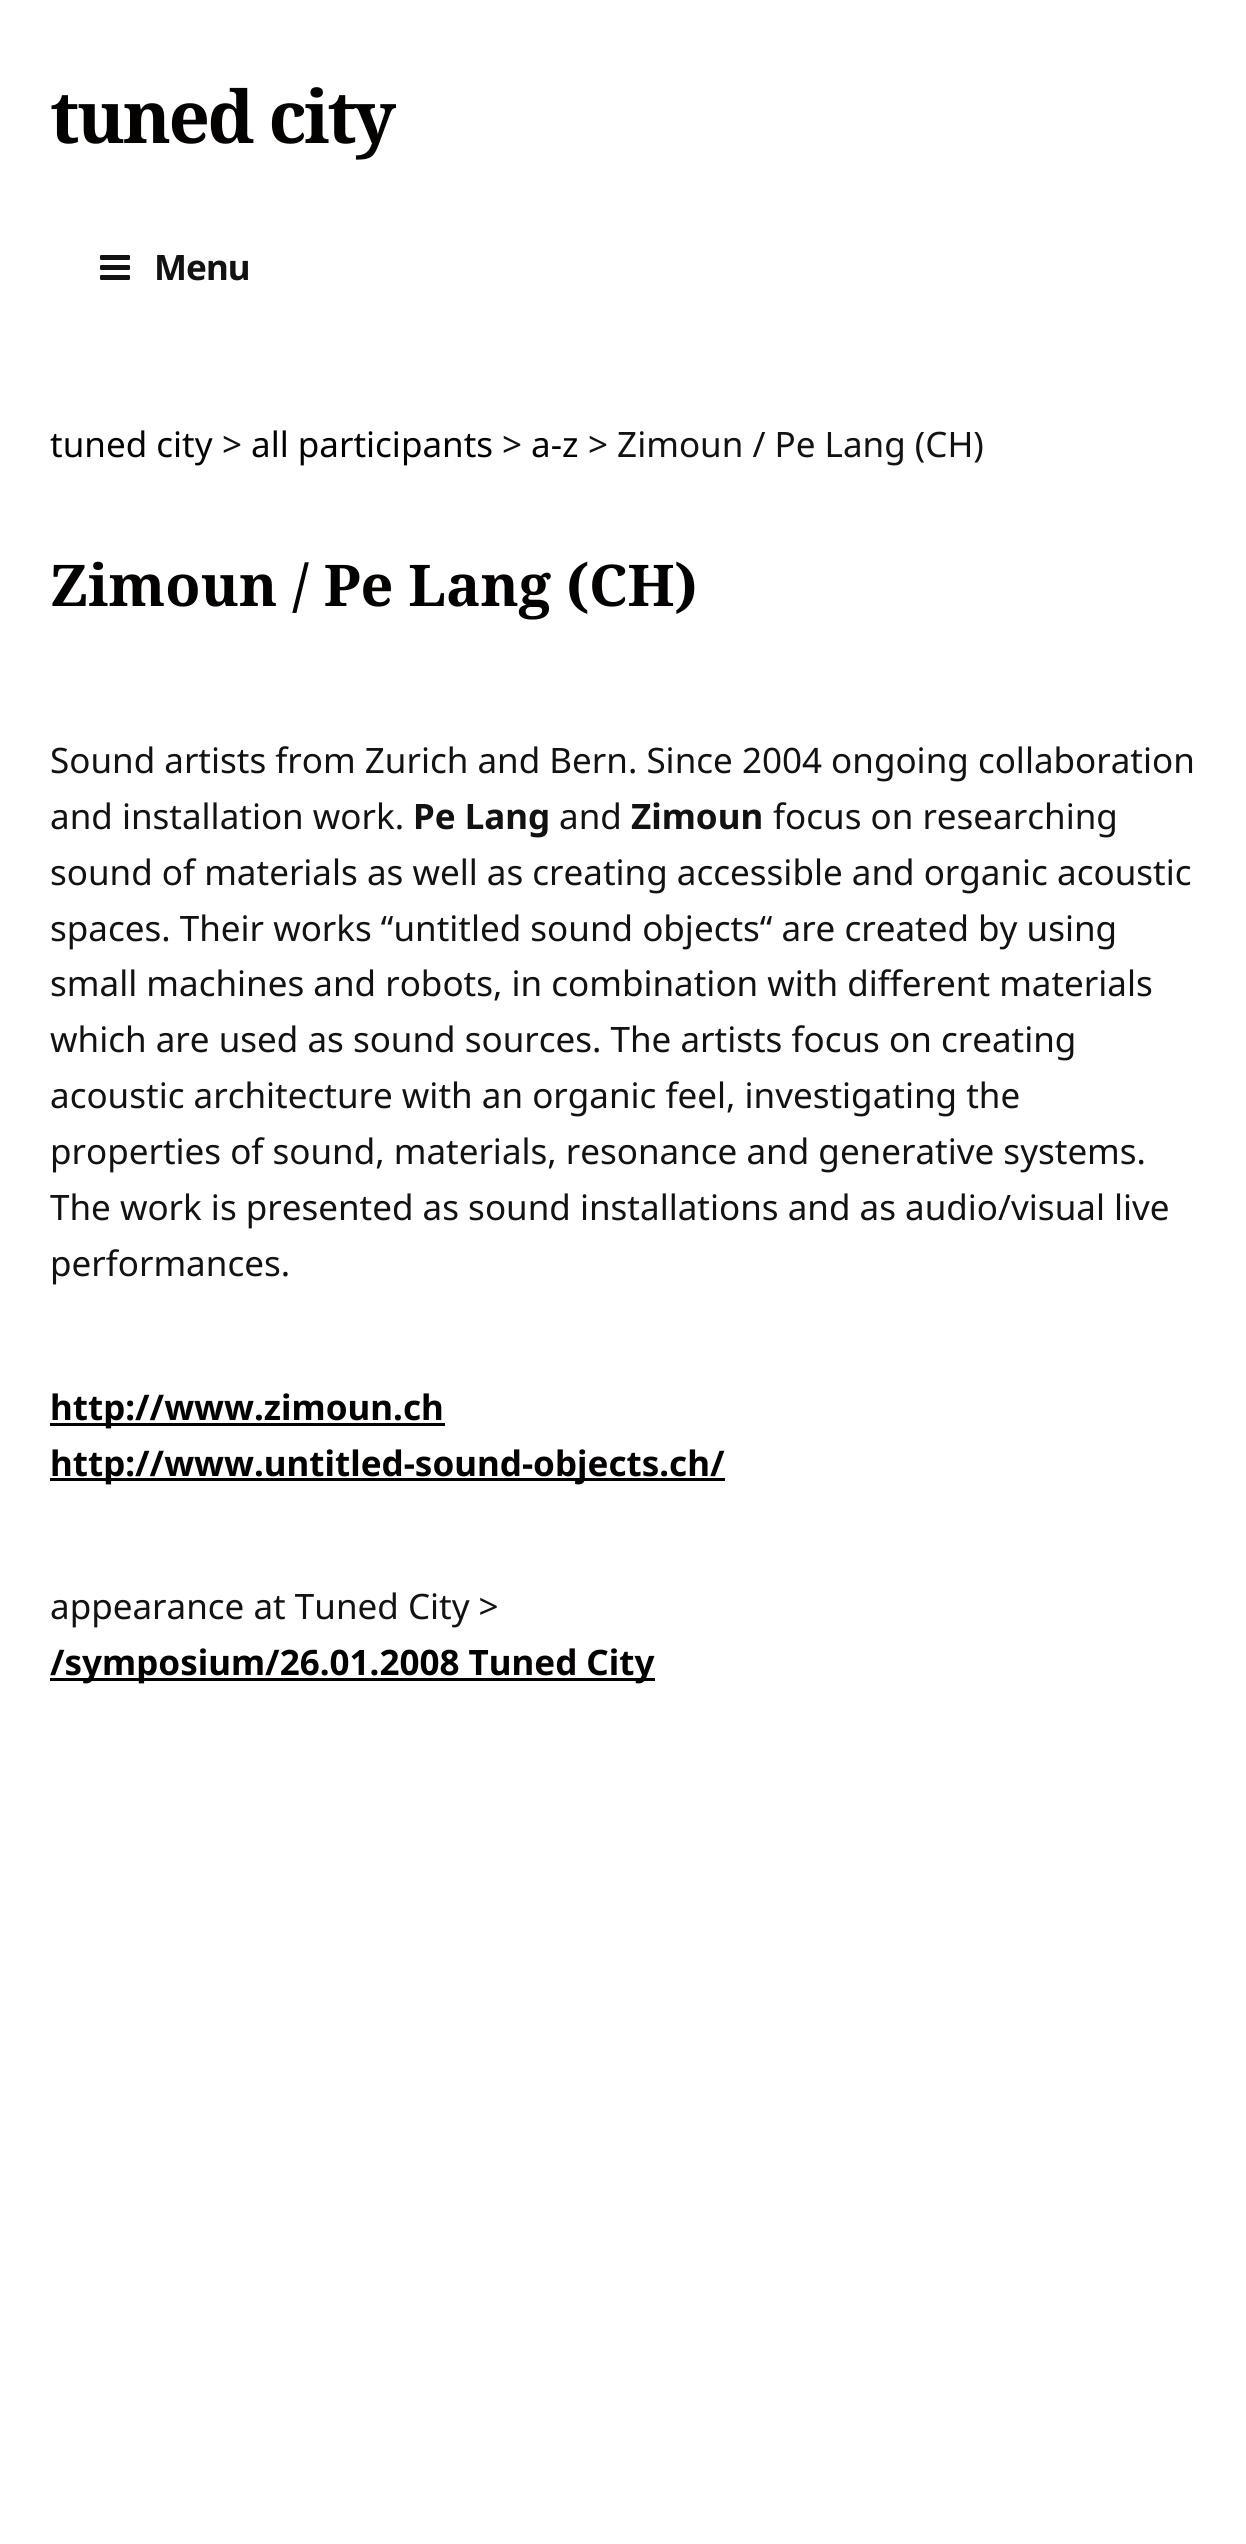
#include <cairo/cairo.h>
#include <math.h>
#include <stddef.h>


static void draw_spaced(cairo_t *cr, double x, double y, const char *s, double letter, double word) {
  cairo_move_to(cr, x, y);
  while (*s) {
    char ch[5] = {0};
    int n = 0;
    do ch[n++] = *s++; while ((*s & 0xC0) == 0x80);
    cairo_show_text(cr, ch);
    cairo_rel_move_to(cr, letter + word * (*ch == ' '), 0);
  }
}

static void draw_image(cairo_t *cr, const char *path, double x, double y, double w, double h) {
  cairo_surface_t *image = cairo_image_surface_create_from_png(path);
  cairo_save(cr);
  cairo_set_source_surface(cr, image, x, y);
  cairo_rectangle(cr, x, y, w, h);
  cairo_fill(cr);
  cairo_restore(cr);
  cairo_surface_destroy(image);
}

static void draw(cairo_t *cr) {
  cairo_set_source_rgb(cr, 1, 1, 1);
  cairo_paint(cr);
  draw_image(cr, "images/1.png", 100, 255, 30, 25);
  cairo_set_source_rgb(cr, 4 / 255.0, 1 / 255.0, 1 / 255.0);
  cairo_rectangle(cr, 50, 1423, 395, 3);
  cairo_fill(cr);
  cairo_rectangle(cr, 50, 1478, 675, 3);
  cairo_fill(cr);
  cairo_rectangle(cr, 50, 1678, 605, 3);
  cairo_fill(cr);
  cairo_select_font_face(cr, "Noto Serif", CAIRO_FONT_SLANT_NORMAL, CAIRO_FONT_WEIGHT_BOLD);
  cairo_set_font_size(cr, 72.5);
  draw_spaced(cr, 50, 143, "tuned city", -2.5, 0);
  cairo_select_font_face(cr, "Noto Sans", CAIRO_FONT_SLANT_NORMAL, CAIRO_FONT_WEIGHT_BOLD);
  cairo_set_font_size(cr, 35);
  cairo_set_source_rgb(cr, 18 / 255.0, 18 / 255.0, 18 / 255.0);
  draw_spaced(cr, 154, 280, "Menu", -1, 0);
  cairo_select_font_face(cr, "Noto Sans", CAIRO_FONT_SLANT_NORMAL, CAIRO_FONT_WEIGHT_NORMAL);
  cairo_set_source_rgb(cr, 4 / 255.0, 1 / 255.0, 1 / 255.0);
  cairo_move_to(cr, 50, 457);
  cairo_show_text(cr, "tuned city");
  cairo_set_source_rgb(cr, 18 / 255.0, 18 / 255.0, 18 / 255.0);
  cairo_move_to(cr, 222, 457);
  cairo_show_text(cr, ">");
  cairo_set_source_rgb(cr, 4 / 255.0, 1 / 255.0, 1 / 255.0);
  cairo_move_to(cr, 251, 457);
  cairo_show_text(cr, "all participants");
  cairo_set_source_rgb(cr, 18 / 255.0, 18 / 255.0, 18 / 255.0);
  cairo_move_to(cr, 502, 457);
  cairo_show_text(cr, ">");
  cairo_set_source_rgb(cr, 4 / 255.0, 1 / 255.0, 1 / 255.0);
  cairo_move_to(cr, 531, 457);
  cairo_show_text(cr, "a-z");
  cairo_set_source_rgb(cr, 18 / 255.0, 18 / 255.0, 18 / 255.0);
  cairo_move_to(cr, 588, 457);
  cairo_show_text(cr, "> Zimoun / Pe Lang (CH)");
  cairo_select_font_face(cr, "Noto Serif", CAIRO_FONT_SLANT_NORMAL, CAIRO_FONT_WEIGHT_BOLD);
  cairo_set_font_size(cr, 57.5);
  cairo_set_source_rgb(cr, 4 / 255.0, 1 / 255.0, 1 / 255.0);
  cairo_move_to(cr, 50, 606);
  cairo_show_text(cr, "Zimoun / Pe Lang (CH)");
  cairo_select_font_face(cr, "Noto Sans", CAIRO_FONT_SLANT_NORMAL, CAIRO_FONT_WEIGHT_NORMAL);
  cairo_set_font_size(cr, 35);
  cairo_set_source_rgb(cr, 18 / 255.0, 18 / 255.0, 18 / 255.0);
  cairo_move_to(cr, 50, 773);
  cairo_show_text(cr, "Sound artists from Zurich and Bern. Since 2004 ongoing collaboration");
  cairo_move_to(cr, 50, 829);
  cairo_show_text(cr, "and installation work.");
  cairo_select_font_face(cr, "Noto Sans", CAIRO_FONT_SLANT_NORMAL, CAIRO_FONT_WEIGHT_BOLD);
  cairo_move_to(cr, 413, 829);
  cairo_show_text(cr, "Pe Lang");
  cairo_select_font_face(cr, "Noto Sans", CAIRO_FONT_SLANT_NORMAL, CAIRO_FONT_WEIGHT_NORMAL);
  cairo_move_to(cr, 559, 829);
  cairo_show_text(cr, "and");
  cairo_select_font_face(cr, "Noto Sans", CAIRO_FONT_SLANT_NORMAL, CAIRO_FONT_WEIGHT_BOLD);
  cairo_move_to(cr, 631, 829);
  cairo_show_text(cr, "Zimoun");
  cairo_select_font_face(cr, "Noto Sans", CAIRO_FONT_SLANT_NORMAL, CAIRO_FONT_WEIGHT_NORMAL);
  cairo_move_to(cr, 773, 829);
  cairo_show_text(cr, "focus on researching");
  cairo_move_to(cr, 50, 885);
  cairo_show_text(cr, "sound of materials as well as creating accessible and organic acoustic");
  cairo_move_to(cr, 50, 941);
  cairo_show_text(cr, "spaces. Their works “untitled sound objects“ are created by using");
  cairo_move_to(cr, 50, 996);
  cairo_show_text(cr, "small machines and robots, in combination with different materials");
  cairo_move_to(cr, 50, 1052);
  cairo_show_text(cr, "which are used as sound sources. The artists focus on creating");
  cairo_move_to(cr, 50, 1108);
  cairo_show_text(cr, "acoustic architecture with an organic feel, investigating the");
  cairo_move_to(cr, 50, 1164);
  cairo_show_text(cr, "properties of sound, materials, resonance and generative systems.");
  cairo_move_to(cr, 50, 1220);
  cairo_show_text(cr, "The work is presented as sound installations and as audio/visual live");
  cairo_move_to(cr, 50, 1276);
  cairo_show_text(cr, "performances.");
  cairo_select_font_face(cr, "Noto Sans", CAIRO_FONT_SLANT_NORMAL, CAIRO_FONT_WEIGHT_BOLD);
  cairo_set_source_rgb(cr, 4 / 255.0, 1 / 255.0, 1 / 255.0);
  cairo_move_to(cr, 50, 1420);
  cairo_show_text(cr, "http://www.zimoun.ch");
  cairo_move_to(cr, 50, 1476);
  cairo_show_text(cr, "http://www.untitled-sound-objects.ch/");
  cairo_select_font_face(cr, "Noto Sans", CAIRO_FONT_SLANT_NORMAL, CAIRO_FONT_WEIGHT_NORMAL);
  cairo_set_source_rgb(cr, 18 / 255.0, 18 / 255.0, 18 / 255.0);
  cairo_move_to(cr, 50, 1619);
  cairo_show_text(cr, "appearance at Tuned City >");
  cairo_select_font_face(cr, "Noto Sans", CAIRO_FONT_SLANT_NORMAL, CAIRO_FONT_WEIGHT_BOLD);
  cairo_set_source_rgb(cr, 4 / 255.0, 1 / 255.0, 1 / 255.0);
  cairo_move_to(cr, 50, 1675);
  cairo_show_text(cr, "/symposium/26.01.2008 Tuned City");
}

int main(void) {
  cairo_surface_t *surface = cairo_image_surface_create(CAIRO_FORMAT_RGB24, 1246, 2544);
  cairo_t *cr = cairo_create(surface);
  cairo_font_options_t *options = cairo_font_options_create();
  cairo_font_options_set_hint_metrics(options, CAIRO_HINT_METRICS_OFF);
  cairo_font_options_set_hint_style(options, CAIRO_HINT_STYLE_NONE);
  cairo_set_font_options(cr, options);
  cairo_set_miter_limit(cr, 4);
  draw(cr);
  cairo_surface_write_to_png(surface, "out.png");
  cairo_font_options_destroy(options);
  cairo_destroy(cr);
  cairo_surface_destroy(surface);
  return 0;
}
